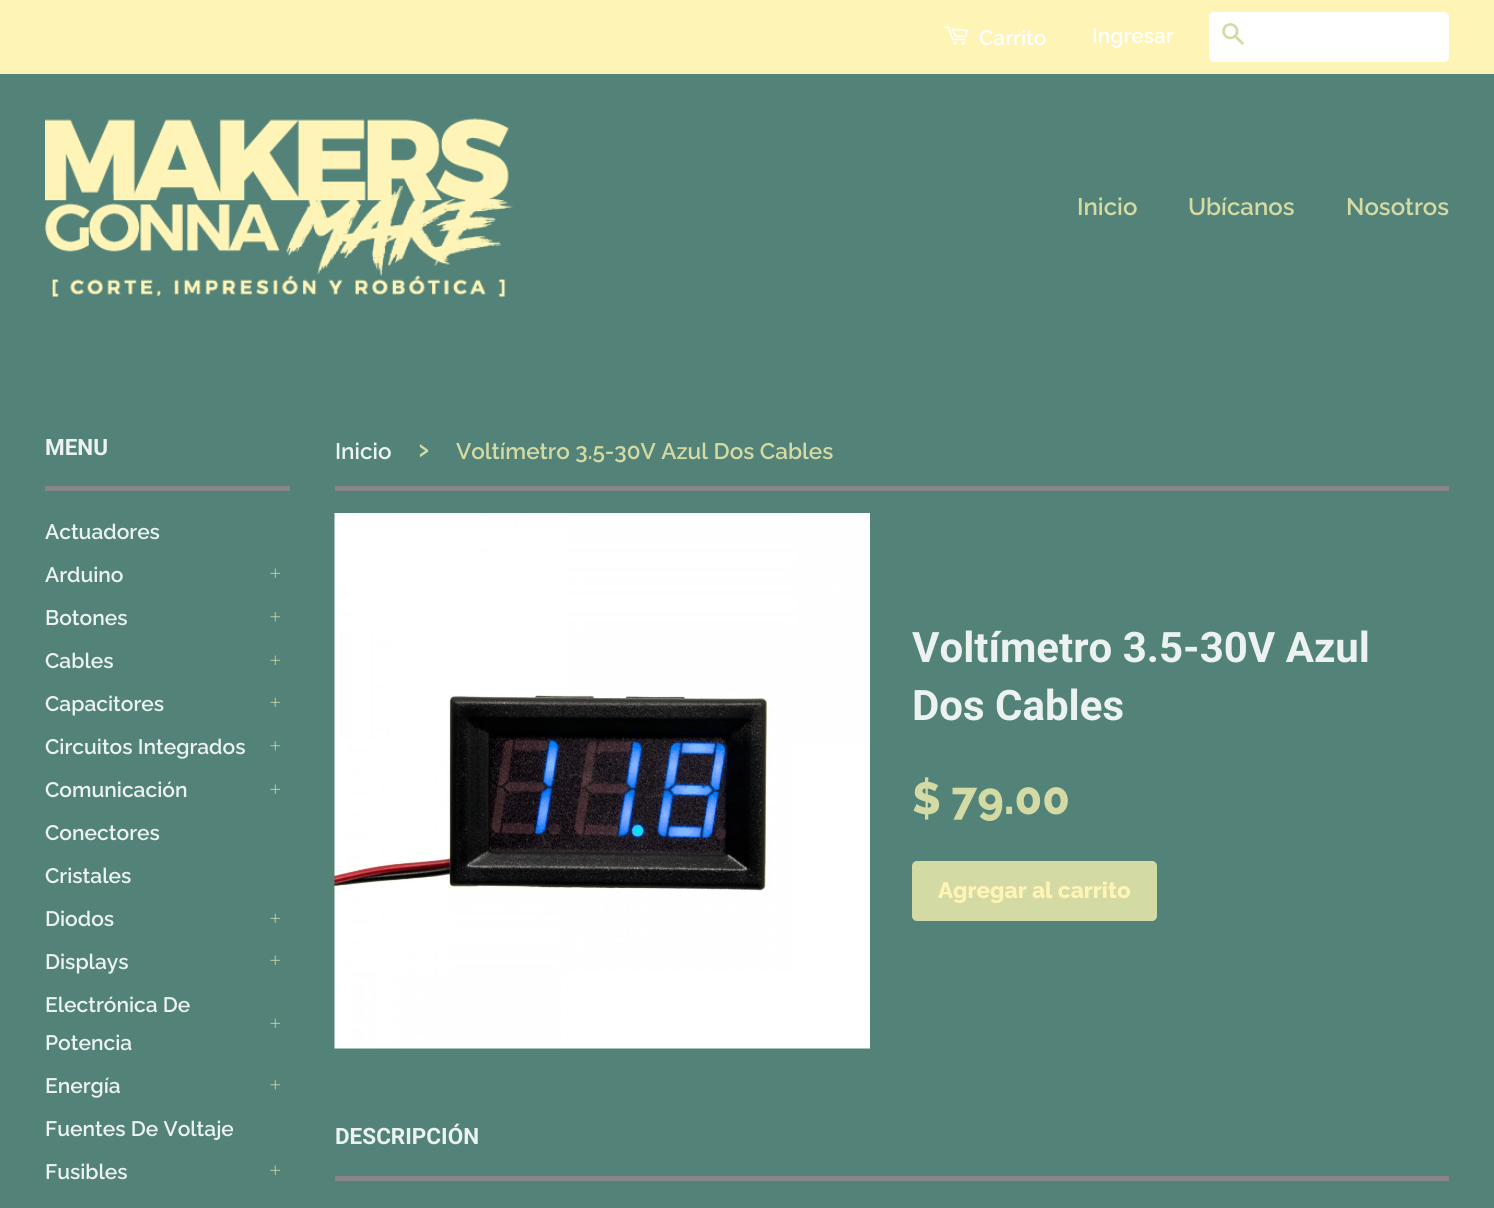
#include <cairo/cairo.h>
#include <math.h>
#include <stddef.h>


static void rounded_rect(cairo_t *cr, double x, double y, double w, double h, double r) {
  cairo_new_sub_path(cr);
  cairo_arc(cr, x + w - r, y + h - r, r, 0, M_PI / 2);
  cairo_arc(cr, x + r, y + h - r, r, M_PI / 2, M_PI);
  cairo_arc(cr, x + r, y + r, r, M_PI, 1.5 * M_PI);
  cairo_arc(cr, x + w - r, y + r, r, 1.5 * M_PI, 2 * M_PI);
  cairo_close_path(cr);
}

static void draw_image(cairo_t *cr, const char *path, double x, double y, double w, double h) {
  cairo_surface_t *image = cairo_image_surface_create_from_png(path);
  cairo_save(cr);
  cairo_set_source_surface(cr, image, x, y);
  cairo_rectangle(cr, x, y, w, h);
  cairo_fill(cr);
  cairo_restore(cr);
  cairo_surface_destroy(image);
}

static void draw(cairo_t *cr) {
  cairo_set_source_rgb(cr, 83 / 255.0, 131 / 255.0, 120 / 255.0);
  cairo_paint(cr);
  cairo_set_source_rgb(cr, 254 / 255.0, 244 / 255.0, 182 / 255.0);
  cairo_rectangle(cr, 0, 0, 1494, 74);
  cairo_fill(cr);
  draw_image(cr, "images/1.png", 944, 26, 24, 19);
  cairo_set_source_rgb(cr, 1, 1, 1);
  rounded_rect(cr, 1209, 12, 240, 50, 5);
  cairo_fill(cr);
  draw_image(cr, "images/2.png", 1222, 23, 22, 22);
  draw_image(cr, "images/3.png", 45, 118, 468, 179);
  cairo_set_source_rgb(cr, 135 / 255.0, 133 / 255.0, 133 / 255.0);
  cairo_rectangle(cr, 45, 486, 245, 5);
  cairo_fill(cr);
  draw_image(cr, "images/4.png", 270, 568, 10, 10);
  draw_image(cr, "images/5.png", 270, 612, 10, 10);
  draw_image(cr, "images/4.png", 270, 655, 10, 10);
  draw_image(cr, "images/4.png", 270, 697, 10, 10);
  draw_image(cr, "images/5.png", 270, 741, 10, 10);
  draw_image(cr, "images/4.png", 270, 784, 10, 10);
  draw_image(cr, "images/4.png", 270, 913, 10, 10);
  draw_image(cr, "images/4.png", 270, 955, 10, 10);
  draw_image(cr, "images/4.png", 270, 1018, 10, 10);
  draw_image(cr, "images/5.png", 270, 1080, 10, 10);
  draw_image(cr, "images/4.png", 270, 1165, 10, 10);
  cairo_rectangle(cr, 335, 486, 1114, 5);
  cairo_fill(cr);
  draw_image(cr, "images/6.png", 334, 513, 536, 536);
  cairo_set_source_rgb(cr, 212 / 255.0, 218 / 255.0, 163 / 255.0);
  rounded_rect(cr, 912, 861, 245, 60, 5);
  cairo_fill(cr);
  cairo_set_source_rgb(cr, 135 / 255.0, 133 / 255.0, 133 / 255.0);
  cairo_rectangle(cr, 335, 1176, 1114, 5);
  cairo_fill(cr);
  cairo_select_font_face(cr, "Raleway SemiBold", CAIRO_FONT_SLANT_NORMAL, CAIRO_FONT_WEIGHT_NORMAL);
  cairo_set_font_size(cr, 21);
  cairo_set_source_rgb(cr, 1, 1, 1);
  cairo_move_to(cr, 979, 45);
  cairo_show_text(cr, "Carrito");
  cairo_move_to(cr, 1092, 43);
  cairo_show_text(cr, "Ingresar");
  cairo_set_font_size(cr, 24);
  cairo_set_source_rgb(cr, 212 / 255.0, 218 / 255.0, 163 / 255.0);
  cairo_move_to(cr, 1077, 215);
  cairo_show_text(cr, "Inicio");
  cairo_move_to(cr, 1188, 215);
  cairo_show_text(cr, "Ubícanos");
  cairo_move_to(cr, 1346, 215);
  cairo_show_text(cr, "Nosotros");
  cairo_select_font_face(cr, "Roboto", CAIRO_FONT_SLANT_NORMAL, CAIRO_FONT_WEIGHT_BOLD);
  cairo_set_font_size(cr, 22.5);
  cairo_set_source_rgb(cr, 235 / 255.0, 242 / 255.0, 240 / 255.0);
  cairo_move_to(cr, 45, 455);
  cairo_show_text(cr, "MENU");
  cairo_select_font_face(cr, "Raleway SemiBold", CAIRO_FONT_SLANT_NORMAL, CAIRO_FONT_WEIGHT_NORMAL);
  cairo_set_font_size(cr, 21);
  cairo_move_to(cr, 45, 539);
  cairo_show_text(cr, "Actuadores");
  cairo_move_to(cr, 45, 582);
  cairo_show_text(cr, "Arduino");
  cairo_move_to(cr, 45, 625);
  cairo_show_text(cr, "Botones");
  cairo_move_to(cr, 45, 668);
  cairo_show_text(cr, "Cables");
  cairo_move_to(cr, 45, 711);
  cairo_show_text(cr, "Capacitores");
  cairo_move_to(cr, 45, 754);
  cairo_show_text(cr, "Circuitos Integrados");
  cairo_move_to(cr, 45, 797);
  cairo_show_text(cr, "Comunicación");
  cairo_move_to(cr, 45, 840);
  cairo_show_text(cr, "Conectores");
  cairo_move_to(cr, 45, 883);
  cairo_show_text(cr, "Cristales");
  cairo_move_to(cr, 45, 926);
  cairo_show_text(cr, "Diodos");
  cairo_move_to(cr, 45, 969);
  cairo_show_text(cr, "Displays");
  cairo_move_to(cr, 45, 1012);
  cairo_show_text(cr, "Electrónica De");
  cairo_move_to(cr, 45, 1050);
  cairo_show_text(cr, "Potencia");
  cairo_move_to(cr, 45, 1093);
  cairo_show_text(cr, "Energía");
  cairo_move_to(cr, 45, 1136);
  cairo_show_text(cr, "Fuentes De Voltaje");
  cairo_move_to(cr, 45, 1179);
  cairo_show_text(cr, "Fusibles");
  cairo_set_font_size(cr, 22.5);
  cairo_move_to(cr, 335, 459);
  cairo_show_text(cr, "Inicio");
  cairo_set_font_size(cr, 32);
  cairo_set_source_rgb(cr, 212 / 255.0, 218 / 255.0, 163 / 255.0);
  cairo_move_to(cr, 418, 459);
  cairo_show_text(cr, "›");
  cairo_set_font_size(cr, 22.5);
  cairo_move_to(cr, 456, 459);
  cairo_show_text(cr, "Voltímetro 3.5-30V Azul Dos Cables");
  cairo_select_font_face(cr, "Roboto", CAIRO_FONT_SLANT_NORMAL, CAIRO_FONT_WEIGHT_BOLD);
  cairo_set_font_size(cr, 42);
  cairo_set_source_rgb(cr, 235 / 255.0, 242 / 255.0, 240 / 255.0);
  cairo_move_to(cr, 912, 662);
  cairo_show_text(cr, "Voltímetro 3.5-30V Azul");
  cairo_move_to(cr, 912, 720);
  cairo_show_text(cr, "Dos Cables");
  cairo_select_font_face(cr, "Raleway ExtraBold", CAIRO_FONT_SLANT_NORMAL, CAIRO_FONT_WEIGHT_NORMAL);
  cairo_set_font_size(cr, 45);
  cairo_set_source_rgb(cr, 212 / 255.0, 218 / 255.0, 163 / 255.0);
  cairo_move_to(cr, 912, 814);
  cairo_show_text(cr, "$ 79.00");
  cairo_set_font_size(cr, 22.5);
  cairo_set_source_rgb(cr, 254 / 255.0, 244 / 255.0, 182 / 255.0);
  cairo_move_to(cr, 938, 898);
  cairo_show_text(cr, "Agregar al carrito");
  cairo_select_font_face(cr, "Roboto", CAIRO_FONT_SLANT_NORMAL, CAIRO_FONT_WEIGHT_BOLD);
  cairo_set_source_rgb(cr, 235 / 255.0, 242 / 255.0, 240 / 255.0);
  cairo_move_to(cr, 335, 1144);
  cairo_show_text(cr, "DESCRIPCIÓN");
}

int main(void) {
  cairo_surface_t *surface = cairo_image_surface_create(CAIRO_FORMAT_RGB24, 1494, 1208);
  cairo_t *cr = cairo_create(surface);
  cairo_font_options_t *options = cairo_font_options_create();
  cairo_font_options_set_hint_metrics(options, CAIRO_HINT_METRICS_OFF);
  cairo_font_options_set_hint_style(options, CAIRO_HINT_STYLE_NONE);
  cairo_set_font_options(cr, options);
  cairo_set_miter_limit(cr, 4);
  draw(cr);
  cairo_surface_write_to_png(surface, "out.png");
  cairo_font_options_destroy(options);
  cairo_destroy(cr);
  cairo_surface_destroy(surface);
  return 0;
}
